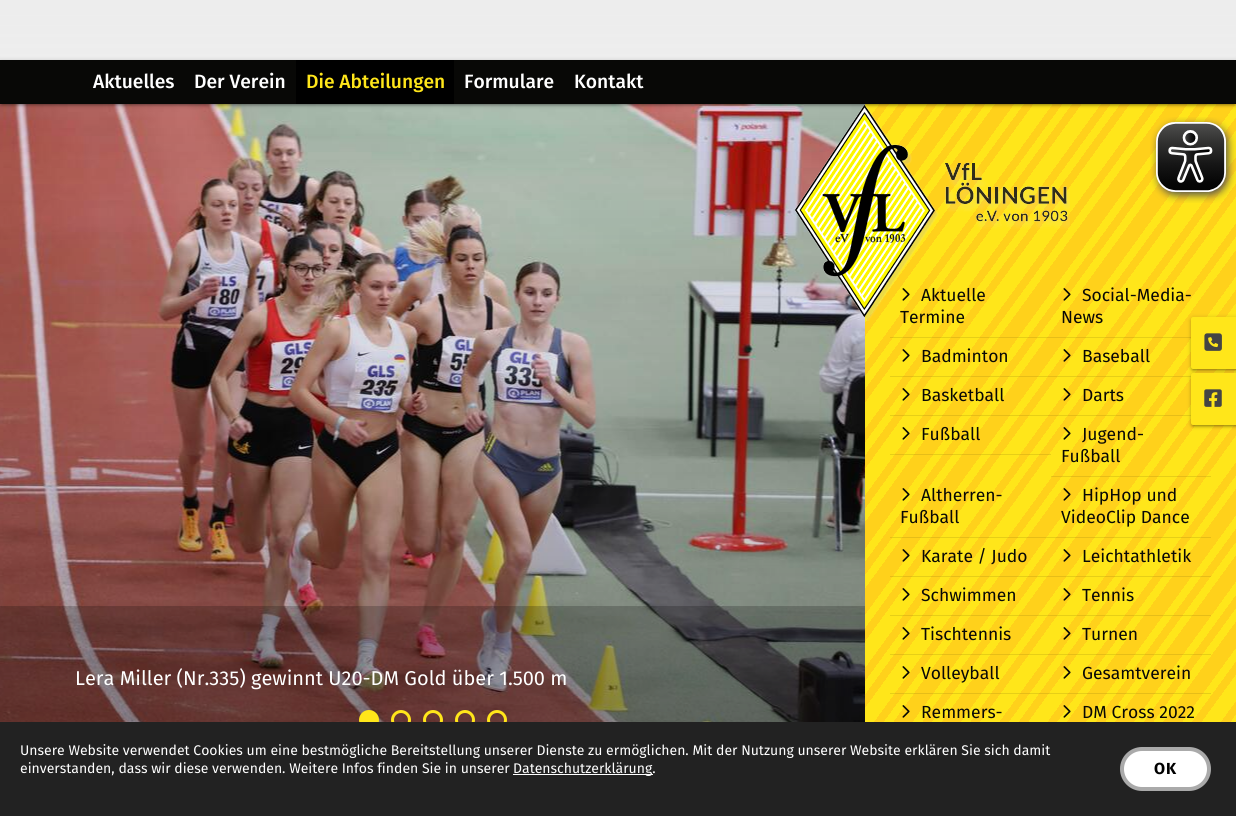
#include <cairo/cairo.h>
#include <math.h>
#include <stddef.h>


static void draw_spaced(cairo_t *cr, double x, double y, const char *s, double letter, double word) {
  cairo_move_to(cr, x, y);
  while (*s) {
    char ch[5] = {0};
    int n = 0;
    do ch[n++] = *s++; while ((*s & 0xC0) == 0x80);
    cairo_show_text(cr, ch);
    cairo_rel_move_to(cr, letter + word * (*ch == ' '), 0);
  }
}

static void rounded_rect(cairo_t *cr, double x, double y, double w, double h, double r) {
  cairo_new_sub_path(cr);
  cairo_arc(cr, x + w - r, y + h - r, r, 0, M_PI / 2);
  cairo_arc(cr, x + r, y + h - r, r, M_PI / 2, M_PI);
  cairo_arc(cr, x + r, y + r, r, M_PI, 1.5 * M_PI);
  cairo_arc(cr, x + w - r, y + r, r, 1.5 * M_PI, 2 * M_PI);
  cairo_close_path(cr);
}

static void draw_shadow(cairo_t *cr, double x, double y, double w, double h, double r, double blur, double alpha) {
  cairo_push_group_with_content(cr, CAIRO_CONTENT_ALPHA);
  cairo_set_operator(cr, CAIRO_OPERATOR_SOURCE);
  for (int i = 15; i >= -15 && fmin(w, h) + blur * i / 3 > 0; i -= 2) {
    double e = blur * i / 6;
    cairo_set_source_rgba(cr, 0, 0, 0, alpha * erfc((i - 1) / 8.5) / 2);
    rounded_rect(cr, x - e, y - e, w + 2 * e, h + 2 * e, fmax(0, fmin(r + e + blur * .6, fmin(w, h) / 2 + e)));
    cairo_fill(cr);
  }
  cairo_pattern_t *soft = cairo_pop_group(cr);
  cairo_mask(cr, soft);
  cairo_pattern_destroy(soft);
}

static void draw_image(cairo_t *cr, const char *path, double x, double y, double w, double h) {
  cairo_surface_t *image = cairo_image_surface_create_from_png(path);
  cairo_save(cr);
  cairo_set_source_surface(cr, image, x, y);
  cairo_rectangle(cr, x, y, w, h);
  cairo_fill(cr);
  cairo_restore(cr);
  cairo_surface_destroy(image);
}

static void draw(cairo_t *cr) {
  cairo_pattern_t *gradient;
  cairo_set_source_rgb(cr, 1, 1, 1);
  cairo_paint(cr);
  draw_image(cr, "images/1.png", 951, 44, 233, 16);
  gradient = cairo_pattern_create_linear(618, 0, 618, 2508);
  cairo_pattern_add_color_stop_rgba(gradient, 0, 237 / 255.0, 237 / 255.0, 237 / 255.0, 1);
  cairo_pattern_add_color_stop_rgba(gradient, 1, 237 / 255.0, 237 / 255.0, 237 / 255.0, 0);
  cairo_set_source(cr, gradient);
  cairo_pattern_destroy(gradient);
  cairo_rectangle(cr, 0, 0, 1236, 60);
  cairo_fill(cr);
  draw_image(cr, "images/2.png", 0, 104, 865, 618);
  gradient = cairo_pattern_create_linear(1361, 728, 730, 270);
  cairo_pattern_add_color_stop_rgba(gradient, 0, 1, 230 / 255.0, 26 / 255.0, 1);
  cairo_pattern_add_color_stop_rgba(gradient, 0.01, 1, 230 / 255.0, 26 / 255.0, 1);
  cairo_pattern_add_color_stop_rgba(gradient, 0.01, 1, 209 / 255.0, 27 / 255.0, 1);
  cairo_pattern_add_color_stop_rgba(gradient, 0.03, 1, 209 / 255.0, 27 / 255.0, 1);
  cairo_pattern_add_color_stop_rgba(gradient, 0.03, 1, 230 / 255.0, 26 / 255.0, 1);
  cairo_pattern_add_color_stop_rgba(gradient, 0.04, 1, 230 / 255.0, 26 / 255.0, 1);
  cairo_pattern_add_color_stop_rgba(gradient, 0.04, 1, 209 / 255.0, 27 / 255.0, 1);
  cairo_pattern_add_color_stop_rgba(gradient, 0.05, 1, 209 / 255.0, 27 / 255.0, 1);
  cairo_pattern_add_color_stop_rgba(gradient, 0.05, 1, 230 / 255.0, 26 / 255.0, 1);
  cairo_pattern_add_color_stop_rgba(gradient, 0.06, 1, 230 / 255.0, 26 / 255.0, 1);
  cairo_pattern_add_color_stop_rgba(gradient, 0.06, 1, 209 / 255.0, 27 / 255.0, 1);
  cairo_pattern_add_color_stop_rgba(gradient, 0.08, 1, 209 / 255.0, 27 / 255.0, 1);
  cairo_pattern_add_color_stop_rgba(gradient, 0.08, 1, 230 / 255.0, 26 / 255.0, 1);
  cairo_pattern_add_color_stop_rgba(gradient, 0.09, 1, 230 / 255.0, 26 / 255.0, 1);
  cairo_pattern_add_color_stop_rgba(gradient, 0.09, 1, 209 / 255.0, 27 / 255.0, 1);
  cairo_pattern_add_color_stop_rgba(gradient, 0.1, 1, 209 / 255.0, 27 / 255.0, 1);
  cairo_pattern_add_color_stop_rgba(gradient, 0.1, 1, 230 / 255.0, 26 / 255.0, 1);
  cairo_pattern_add_color_stop_rgba(gradient, 0.12, 1, 230 / 255.0, 26 / 255.0, 1);
  cairo_pattern_add_color_stop_rgba(gradient, 0.12, 1, 209 / 255.0, 27 / 255.0, 1);
  cairo_pattern_add_color_stop_rgba(gradient, 0.13, 1, 209 / 255.0, 27 / 255.0, 1);
  cairo_pattern_add_color_stop_rgba(gradient, 0.13, 1, 230 / 255.0, 26 / 255.0, 1);
  cairo_pattern_add_color_stop_rgba(gradient, 0.14, 1, 230 / 255.0, 26 / 255.0, 1);
  cairo_pattern_add_color_stop_rgba(gradient, 0.14, 1, 209 / 255.0, 27 / 255.0, 1);
  cairo_pattern_add_color_stop_rgba(gradient, 0.15, 1, 209 / 255.0, 27 / 255.0, 1);
  cairo_pattern_add_color_stop_rgba(gradient, 0.15, 1, 230 / 255.0, 26 / 255.0, 1);
  cairo_pattern_add_color_stop_rgba(gradient, 0.17, 1, 230 / 255.0, 26 / 255.0, 1);
  cairo_pattern_add_color_stop_rgba(gradient, 0.17, 1, 209 / 255.0, 27 / 255.0, 1);
  cairo_pattern_add_color_stop_rgba(gradient, 0.18, 1, 209 / 255.0, 27 / 255.0, 1);
  cairo_pattern_add_color_stop_rgba(gradient, 0.18, 1, 230 / 255.0, 26 / 255.0, 1);
  cairo_pattern_add_color_stop_rgba(gradient, 0.19, 1, 230 / 255.0, 26 / 255.0, 1);
  cairo_pattern_add_color_stop_rgba(gradient, 0.19, 1, 209 / 255.0, 27 / 255.0, 1);
  cairo_pattern_add_color_stop_rgba(gradient, 0.21, 1, 209 / 255.0, 27 / 255.0, 1);
  cairo_pattern_add_color_stop_rgba(gradient, 0.21, 1, 230 / 255.0, 26 / 255.0, 1);
  cairo_pattern_add_color_stop_rgba(gradient, 0.22, 1, 230 / 255.0, 26 / 255.0, 1);
  cairo_pattern_add_color_stop_rgba(gradient, 0.22, 1, 209 / 255.0, 27 / 255.0, 1);
  cairo_pattern_add_color_stop_rgba(gradient, 0.23, 1, 209 / 255.0, 27 / 255.0, 1);
  cairo_pattern_add_color_stop_rgba(gradient, 0.23, 1, 230 / 255.0, 26 / 255.0, 1);
  cairo_pattern_add_color_stop_rgba(gradient, 0.24, 1, 230 / 255.0, 26 / 255.0, 1);
  cairo_pattern_add_color_stop_rgba(gradient, 0.24, 1, 209 / 255.0, 27 / 255.0, 1);
  cairo_pattern_add_color_stop_rgba(gradient, 0.26, 1, 209 / 255.0, 27 / 255.0, 1);
  cairo_pattern_add_color_stop_rgba(gradient, 0.26, 1, 230 / 255.0, 26 / 255.0, 1);
  cairo_pattern_add_color_stop_rgba(gradient, 0.27, 1, 230 / 255.0, 26 / 255.0, 1);
  cairo_pattern_add_color_stop_rgba(gradient, 0.27, 1, 209 / 255.0, 27 / 255.0, 1);
  cairo_pattern_add_color_stop_rgba(gradient, 0.28, 1, 209 / 255.0, 27 / 255.0, 1);
  cairo_pattern_add_color_stop_rgba(gradient, 0.28, 1, 230 / 255.0, 26 / 255.0, 1);
  cairo_pattern_add_color_stop_rgba(gradient, 0.29, 1, 230 / 255.0, 26 / 255.0, 1);
  cairo_pattern_add_color_stop_rgba(gradient, 0.29, 1, 209 / 255.0, 27 / 255.0, 1);
  cairo_pattern_add_color_stop_rgba(gradient, 0.31, 1, 209 / 255.0, 27 / 255.0, 1);
  cairo_pattern_add_color_stop_rgba(gradient, 0.31, 1, 230 / 255.0, 26 / 255.0, 1);
  cairo_pattern_add_color_stop_rgba(gradient, 0.32, 1, 230 / 255.0, 26 / 255.0, 1);
  cairo_pattern_add_color_stop_rgba(gradient, 0.32, 1, 209 / 255.0, 27 / 255.0, 1);
  cairo_pattern_add_color_stop_rgba(gradient, 0.33, 1, 209 / 255.0, 27 / 255.0, 1);
  cairo_pattern_add_color_stop_rgba(gradient, 0.33, 1, 230 / 255.0, 26 / 255.0, 1);
  cairo_pattern_add_color_stop_rgba(gradient, 0.35, 1, 230 / 255.0, 26 / 255.0, 1);
  cairo_pattern_add_color_stop_rgba(gradient, 0.35, 1, 209 / 255.0, 27 / 255.0, 1);
  cairo_pattern_add_color_stop_rgba(gradient, 0.36, 1, 209 / 255.0, 27 / 255.0, 1);
  cairo_pattern_add_color_stop_rgba(gradient, 0.36, 1, 230 / 255.0, 26 / 255.0, 1);
  cairo_pattern_add_color_stop_rgba(gradient, 0.37, 1, 230 / 255.0, 26 / 255.0, 1);
  cairo_pattern_add_color_stop_rgba(gradient, 0.37, 1, 209 / 255.0, 27 / 255.0, 1);
  cairo_pattern_add_color_stop_rgba(gradient, 0.38, 1, 209 / 255.0, 27 / 255.0, 1);
  cairo_pattern_add_color_stop_rgba(gradient, 0.38, 1, 230 / 255.0, 26 / 255.0, 1);
  cairo_pattern_add_color_stop_rgba(gradient, 0.4, 1, 230 / 255.0, 26 / 255.0, 1);
  cairo_pattern_add_color_stop_rgba(gradient, 0.4, 1, 209 / 255.0, 27 / 255.0, 1);
  cairo_pattern_add_color_stop_rgba(gradient, 0.41, 1, 209 / 255.0, 27 / 255.0, 1);
  cairo_pattern_add_color_stop_rgba(gradient, 0.41, 1, 230 / 255.0, 26 / 255.0, 1);
  cairo_pattern_add_color_stop_rgba(gradient, 0.42, 1, 230 / 255.0, 26 / 255.0, 1);
  cairo_pattern_add_color_stop_rgba(gradient, 0.42, 1, 209 / 255.0, 27 / 255.0, 1);
  cairo_pattern_add_color_stop_rgba(gradient, 0.44, 1, 209 / 255.0, 27 / 255.0, 1);
  cairo_pattern_add_color_stop_rgba(gradient, 0.44, 1, 230 / 255.0, 26 / 255.0, 1);
  cairo_pattern_add_color_stop_rgba(gradient, 0.45, 1, 230 / 255.0, 26 / 255.0, 1);
  cairo_pattern_add_color_stop_rgba(gradient, 0.45, 1, 209 / 255.0, 27 / 255.0, 1);
  cairo_pattern_add_color_stop_rgba(gradient, 0.46, 1, 209 / 255.0, 27 / 255.0, 1);
  cairo_pattern_add_color_stop_rgba(gradient, 0.46, 1, 230 / 255.0, 26 / 255.0, 1);
  cairo_pattern_add_color_stop_rgba(gradient, 0.47, 1, 230 / 255.0, 26 / 255.0, 1);
  cairo_pattern_add_color_stop_rgba(gradient, 0.47, 1, 209 / 255.0, 27 / 255.0, 1);
  cairo_pattern_add_color_stop_rgba(gradient, 0.49, 1, 209 / 255.0, 27 / 255.0, 1);
  cairo_pattern_add_color_stop_rgba(gradient, 0.49, 1, 230 / 255.0, 26 / 255.0, 1);
  cairo_pattern_add_color_stop_rgba(gradient, 0.5, 1, 230 / 255.0, 26 / 255.0, 1);
  cairo_pattern_add_color_stop_rgba(gradient, 0.5, 1, 209 / 255.0, 27 / 255.0, 1);
  cairo_pattern_add_color_stop_rgba(gradient, 0.51, 1, 209 / 255.0, 27 / 255.0, 1);
  cairo_pattern_add_color_stop_rgba(gradient, 0.51, 1, 230 / 255.0, 26 / 255.0, 1);
  cairo_pattern_add_color_stop_rgba(gradient, 0.53, 1, 230 / 255.0, 26 / 255.0, 1);
  cairo_pattern_add_color_stop_rgba(gradient, 0.53, 1, 209 / 255.0, 27 / 255.0, 1);
  cairo_pattern_add_color_stop_rgba(gradient, 0.54, 1, 209 / 255.0, 27 / 255.0, 1);
  cairo_pattern_add_color_stop_rgba(gradient, 0.54, 1, 230 / 255.0, 26 / 255.0, 1);
  cairo_pattern_add_color_stop_rgba(gradient, 0.55, 1, 230 / 255.0, 26 / 255.0, 1);
  cairo_pattern_add_color_stop_rgba(gradient, 0.55, 1, 209 / 255.0, 27 / 255.0, 1);
  cairo_pattern_add_color_stop_rgba(gradient, 0.56, 1, 209 / 255.0, 27 / 255.0, 1);
  cairo_pattern_add_color_stop_rgba(gradient, 0.56, 1, 230 / 255.0, 26 / 255.0, 1);
  cairo_pattern_add_color_stop_rgba(gradient, 0.58, 1, 230 / 255.0, 26 / 255.0, 1);
  cairo_pattern_add_color_stop_rgba(gradient, 0.58, 1, 209 / 255.0, 27 / 255.0, 1);
  cairo_pattern_add_color_stop_rgba(gradient, 0.59, 1, 209 / 255.0, 27 / 255.0, 1);
  cairo_pattern_add_color_stop_rgba(gradient, 0.59, 1, 230 / 255.0, 26 / 255.0, 1);
  cairo_pattern_add_color_stop_rgba(gradient, 0.6, 1, 230 / 255.0, 26 / 255.0, 1);
  cairo_pattern_add_color_stop_rgba(gradient, 0.6, 1, 209 / 255.0, 27 / 255.0, 1);
  cairo_pattern_add_color_stop_rgba(gradient, 0.62, 1, 209 / 255.0, 27 / 255.0, 1);
  cairo_pattern_add_color_stop_rgba(gradient, 0.62, 1, 230 / 255.0, 26 / 255.0, 1);
  cairo_pattern_add_color_stop_rgba(gradient, 0.63, 1, 230 / 255.0, 26 / 255.0, 1);
  cairo_pattern_add_color_stop_rgba(gradient, 0.63, 1, 209 / 255.0, 27 / 255.0, 1);
  cairo_pattern_add_color_stop_rgba(gradient, 0.64, 1, 209 / 255.0, 27 / 255.0, 1);
  cairo_pattern_add_color_stop_rgba(gradient, 0.64, 1, 230 / 255.0, 26 / 255.0, 1);
  cairo_pattern_add_color_stop_rgba(gradient, 0.65, 1, 230 / 255.0, 26 / 255.0, 1);
  cairo_pattern_add_color_stop_rgba(gradient, 0.65, 1, 209 / 255.0, 27 / 255.0, 1);
  cairo_pattern_add_color_stop_rgba(gradient, 0.67, 1, 209 / 255.0, 27 / 255.0, 1);
  cairo_pattern_add_color_stop_rgba(gradient, 0.67, 1, 230 / 255.0, 26 / 255.0, 1);
  cairo_pattern_add_color_stop_rgba(gradient, 0.68, 1, 230 / 255.0, 26 / 255.0, 1);
  cairo_pattern_add_color_stop_rgba(gradient, 0.68, 1, 209 / 255.0, 27 / 255.0, 1);
  cairo_pattern_add_color_stop_rgba(gradient, 0.69, 1, 209 / 255.0, 27 / 255.0, 1);
  cairo_pattern_add_color_stop_rgba(gradient, 0.69, 1, 230 / 255.0, 26 / 255.0, 1);
  cairo_pattern_add_color_stop_rgba(gradient, 0.71, 1, 230 / 255.0, 26 / 255.0, 1);
  cairo_pattern_add_color_stop_rgba(gradient, 0.71, 1, 209 / 255.0, 27 / 255.0, 1);
  cairo_pattern_add_color_stop_rgba(gradient, 0.72, 1, 209 / 255.0, 27 / 255.0, 1);
  cairo_pattern_add_color_stop_rgba(gradient, 0.72, 1, 230 / 255.0, 26 / 255.0, 1);
  cairo_pattern_add_color_stop_rgba(gradient, 0.73, 1, 230 / 255.0, 26 / 255.0, 1);
  cairo_pattern_add_color_stop_rgba(gradient, 0.73, 1, 209 / 255.0, 27 / 255.0, 1);
  cairo_pattern_add_color_stop_rgba(gradient, 0.74, 1, 209 / 255.0, 27 / 255.0, 1);
  cairo_pattern_add_color_stop_rgba(gradient, 0.74, 1, 230 / 255.0, 26 / 255.0, 1);
  cairo_pattern_add_color_stop_rgba(gradient, 0.76, 1, 230 / 255.0, 26 / 255.0, 1);
  cairo_pattern_add_color_stop_rgba(gradient, 0.76, 1, 209 / 255.0, 27 / 255.0, 1);
  cairo_pattern_add_color_stop_rgba(gradient, 0.77, 1, 209 / 255.0, 27 / 255.0, 1);
  cairo_pattern_add_color_stop_rgba(gradient, 0.77, 1, 230 / 255.0, 26 / 255.0, 1);
  cairo_pattern_add_color_stop_rgba(gradient, 0.78, 1, 230 / 255.0, 26 / 255.0, 1);
  cairo_pattern_add_color_stop_rgba(gradient, 0.78, 1, 209 / 255.0, 27 / 255.0, 1);
  cairo_pattern_add_color_stop_rgba(gradient, 0.79, 1, 209 / 255.0, 27 / 255.0, 1);
  cairo_pattern_add_color_stop_rgba(gradient, 0.79, 1, 230 / 255.0, 26 / 255.0, 1);
  cairo_pattern_add_color_stop_rgba(gradient, 0.81, 1, 230 / 255.0, 26 / 255.0, 1);
  cairo_pattern_add_color_stop_rgba(gradient, 0.81, 1, 209 / 255.0, 27 / 255.0, 1);
  cairo_pattern_add_color_stop_rgba(gradient, 0.82, 1, 209 / 255.0, 27 / 255.0, 1);
  cairo_pattern_add_color_stop_rgba(gradient, 0.82, 1, 230 / 255.0, 26 / 255.0, 1);
  cairo_pattern_add_color_stop_rgba(gradient, 0.83, 1, 230 / 255.0, 26 / 255.0, 1);
  cairo_pattern_add_color_stop_rgba(gradient, 0.83, 1, 209 / 255.0, 27 / 255.0, 1);
  cairo_pattern_add_color_stop_rgba(gradient, 0.85, 1, 209 / 255.0, 27 / 255.0, 1);
  cairo_pattern_add_color_stop_rgba(gradient, 0.85, 1, 230 / 255.0, 26 / 255.0, 1);
  cairo_pattern_add_color_stop_rgba(gradient, 0.86, 1, 230 / 255.0, 26 / 255.0, 1);
  cairo_pattern_add_color_stop_rgba(gradient, 0.86, 1, 209 / 255.0, 27 / 255.0, 1);
  cairo_pattern_add_color_stop_rgba(gradient, 0.87, 1, 209 / 255.0, 27 / 255.0, 1);
  cairo_pattern_add_color_stop_rgba(gradient, 0.87, 1, 230 / 255.0, 26 / 255.0, 1);
  cairo_pattern_add_color_stop_rgba(gradient, 0.88, 1, 230 / 255.0, 26 / 255.0, 1);
  cairo_pattern_add_color_stop_rgba(gradient, 0.88, 1, 209 / 255.0, 27 / 255.0, 1);
  cairo_pattern_add_color_stop_rgba(gradient, 0.9, 1, 209 / 255.0, 27 / 255.0, 1);
  cairo_pattern_add_color_stop_rgba(gradient, 0.9, 1, 230 / 255.0, 26 / 255.0, 1);
  cairo_pattern_add_color_stop_rgba(gradient, 0.91, 1, 230 / 255.0, 26 / 255.0, 1);
  cairo_pattern_add_color_stop_rgba(gradient, 0.91, 1, 209 / 255.0, 27 / 255.0, 1);
  cairo_pattern_add_color_stop_rgba(gradient, 0.92, 1, 209 / 255.0, 27 / 255.0, 1);
  cairo_pattern_add_color_stop_rgba(gradient, 0.92, 1, 230 / 255.0, 26 / 255.0, 1);
  cairo_pattern_add_color_stop_rgba(gradient, 0.94, 1, 230 / 255.0, 26 / 255.0, 1);
  cairo_pattern_add_color_stop_rgba(gradient, 0.94, 1, 209 / 255.0, 27 / 255.0, 1);
  cairo_pattern_add_color_stop_rgba(gradient, 0.95, 1, 209 / 255.0, 27 / 255.0, 1);
  cairo_pattern_add_color_stop_rgba(gradient, 0.95, 1, 230 / 255.0, 26 / 255.0, 1);
  cairo_pattern_add_color_stop_rgba(gradient, 0.96, 1, 230 / 255.0, 26 / 255.0, 1);
  cairo_pattern_add_color_stop_rgba(gradient, 0.96, 1, 209 / 255.0, 27 / 255.0, 1);
  cairo_pattern_add_color_stop_rgba(gradient, 0.97, 1, 209 / 255.0, 27 / 255.0, 1);
  cairo_pattern_add_color_stop_rgba(gradient, 0.97, 1, 230 / 255.0, 26 / 255.0, 1);
  cairo_pattern_add_color_stop_rgba(gradient, 0.99, 1, 230 / 255.0, 26 / 255.0, 1);
  cairo_pattern_add_color_stop_rgba(gradient, 0.99, 1, 209 / 255.0, 27 / 255.0, 1);
  cairo_pattern_add_color_stop_rgba(gradient, 1, 1, 209 / 255.0, 27 / 255.0, 1);
  cairo_set_source(cr, gradient);
  cairo_pattern_destroy(gradient);
  cairo_rectangle(cr, 865, 104, 371, 618);
  cairo_fill(cr);
  draw_image(cr, "images/3.png", 795, 104, 275, 217);
  cairo_set_source_rgb(cr, 0, 0, 0);
  draw_shadow(cr, 0, 61, 1236, 44, 0, 2.5, 0.2);
  draw_shadow(cr, 2, 65, 1232, 40, 0, 0.5, 0.12);
  draw_shadow(cr, 0, 62, 1236, 44, 0, 1, 0.14);
  cairo_set_source_rgb(cr, 8 / 255.0, 8 / 255.0, 6 / 255.0);
  cairo_rectangle(cr, 0, 60, 1236, 44);
  cairo_fill(cr);
  cairo_set_source_rgb(cr, 0, 0, 0);
  cairo_rectangle(cr, 296, 60, 158, 44);
  cairo_fill(cr);
  cairo_set_source_rgba(cr, 0, 0, 0, 0.2);
  cairo_rectangle(cr, 0, 606, 865, 116);
  cairo_fill(cr);
  cairo_set_source_rgb(cr, 1, 230 / 255.0, 26 / 255.0);
  cairo_arc(cr, 369, 720, 8.5, 0, 2 * M_PI);
  cairo_fill_preserve(cr);
  cairo_set_line_width(cr, 3);
  cairo_stroke(cr);
  cairo_arc(cr, 401, 720, 8.5, 0, 2 * M_PI);
  cairo_stroke(cr);
  cairo_arc(cr, 433, 720, 8.5, 0, 2 * M_PI);
  cairo_stroke(cr);
  cairo_arc(cr, 465, 720, 8.5, 0, 2 * M_PI);
  cairo_stroke(cr);
  cairo_arc(cr, 497, 720, 8.5, 0, 2 * M_PI);
  cairo_stroke(cr);
  cairo_set_source_rgba(cr, 0, 0, 0, 0.1);
  cairo_rectangle(cr, 890, 337, 161, 1);
  cairo_fill(cr);
  draw_image(cr, "images/4.png", 902, 288, 8, 13);
  cairo_rectangle(cr, 1051, 337, 140, 1);
  cairo_fill(cr);
  draw_image(cr, "images/5.png", 1063, 288, 8, 13);
  cairo_rectangle(cr, 890, 376, 161, 1);
  cairo_fill(cr);
  draw_image(cr, "images/6.png", 902, 349, 8, 13);
  cairo_rectangle(cr, 1051, 376, 140, 1);
  cairo_fill(cr);
  draw_image(cr, "images/7.png", 1063, 349, 8, 13);
  cairo_rectangle(cr, 890, 415, 161, 1);
  cairo_fill(cr);
  draw_image(cr, "images/8.png", 902, 388, 8, 13);
  cairo_rectangle(cr, 1051, 415, 140, 1);
  cairo_fill(cr);
  draw_image(cr, "images/9.png", 1063, 388, 8, 13);
  cairo_rectangle(cr, 890, 454, 161, 1);
  cairo_fill(cr);
  draw_image(cr, "images/10.png", 902, 427, 8, 13);
  cairo_rectangle(cr, 1051, 476, 160, 1);
  cairo_fill(cr);
  draw_image(cr, "images/11.png", 1063, 427, 8, 13);
  cairo_rectangle(cr, 890, 537, 161, 1);
  cairo_fill(cr);
  draw_image(cr, "images/12.png", 902, 488, 8, 13);
  cairo_rectangle(cr, 1051, 537, 160, 1);
  cairo_fill(cr);
  draw_image(cr, "images/13.png", 1063, 488, 8, 13);
  cairo_rectangle(cr, 890, 576, 161, 1);
  cairo_fill(cr);
  draw_image(cr, "images/14.png", 902, 549, 8, 13);
  cairo_rectangle(cr, 1051, 576, 160, 1);
  cairo_fill(cr);
  draw_image(cr, "images/15.png", 1063, 549, 8, 13);
  cairo_rectangle(cr, 890, 615, 161, 1);
  cairo_fill(cr);
  draw_image(cr, "images/16.png", 902, 588, 8, 13);
  cairo_rectangle(cr, 1051, 615, 160, 1);
  cairo_fill(cr);
  draw_image(cr, "images/7.png", 1063, 588, 8, 13);
  cairo_rectangle(cr, 890, 654, 161, 1);
  cairo_fill(cr);
  draw_image(cr, "images/17.png", 902, 627, 8, 13);
  cairo_rectangle(cr, 1051, 654, 160, 1);
  cairo_fill(cr);
  draw_image(cr, "images/18.png", 1063, 627, 8, 13);
  cairo_rectangle(cr, 890, 693, 161, 1);
  cairo_fill(cr);
  draw_image(cr, "images/19.png", 902, 666, 8, 13);
  cairo_rectangle(cr, 1051, 693, 160, 1);
  cairo_fill(cr);
  draw_image(cr, "images/20.png", 1063, 666, 8, 13);
  draw_image(cr, "images/21.png", 902, 705, 8, 13);
  draw_image(cr, "images/22.png", 1063, 705, 8, 13);
  draw_image(cr, "images/23.png", 1150, 117, 86, 86);
  cairo_set_source_rgb(cr, 0, 0, 0);
  draw_shadow(cr, 1191, 318, 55, 52, 2, 2.5, 0.2);
  draw_shadow(cr, 1193, 322, 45, 48, 0, 0.5, 0.12);
  draw_shadow(cr, 1191, 319, 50, 52, 2, 1, 0.14);
  cairo_set_source_rgb(cr, 1, 230 / 255.0, 26 / 255.0);
  cairo_new_path(cr);
  cairo_move_to(cr, 1193, 317);
  cairo_line_to(cr, 1236, 317);
  cairo_line_to(cr, 1236, 369);
  cairo_line_to(cr, 1193, 369);
  cairo_curve_to(cr, 1192, 369, 1191, 368, 1191, 367);
  cairo_line_to(cr, 1191, 319);
  cairo_curve_to(cr, 1191, 318, 1192, 317, 1193, 317);
  cairo_close_path(cr);
  cairo_fill(cr);
  draw_image(cr, "images/24.png", 1204, 333, 18, 18);
  cairo_set_source_rgb(cr, 0, 0, 0);
  draw_shadow(cr, 1191, 374, 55, 52, 2, 2.5, 0.2);
  draw_shadow(cr, 1193, 378, 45, 48, 0, 0.5, 0.12);
  draw_shadow(cr, 1191, 375, 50, 52, 2, 1, 0.14);
  cairo_set_source_rgb(cr, 1, 230 / 255.0, 26 / 255.0);
  cairo_new_path(cr);
  cairo_move_to(cr, 1193, 373);
  cairo_line_to(cr, 1236, 373);
  cairo_line_to(cr, 1236, 425);
  cairo_line_to(cr, 1193, 425);
  cairo_curve_to(cr, 1192, 425, 1191, 424, 1191, 423);
  cairo_line_to(cr, 1191, 375);
  cairo_curve_to(cr, 1191, 374, 1192, 373, 1193, 373);
  cairo_close_path(cr);
  cairo_fill(cr);
  draw_image(cr, "images/25.png", 1204, 389, 18, 18);
  cairo_set_source_rgb(cr, 34 / 255.0, 34 / 255.0, 34 / 255.0);
  cairo_rectangle(cr, 0, 722, 1236, 94);
  cairo_fill(cr);
  cairo_set_source_rgb(cr, 1, 1, 1);
  cairo_rectangle(cr, 513, 774, 140, 1);
  cairo_fill(cr);
  rounded_rect(cr, 1122, 749, 87, 40, 20);
  cairo_fill_preserve(cr);
  cairo_set_source_rgb(cr, 170 / 255.0, 170 / 255.0, 170 / 255.0);
  cairo_set_line_width(cr, 4);
  cairo_stroke(cr);
  cairo_select_font_face(cr, "Fira Sans Medium", CAIRO_FONT_SLANT_NORMAL, CAIRO_FONT_WEIGHT_NORMAL);
  cairo_set_font_size(cr, 19.25);
  cairo_set_source_rgb(cr, 1, 1, 1);
  cairo_move_to(cr, 93, 88);
  cairo_show_text(cr, "Aktuelles");
  cairo_move_to(cr, 194, 88);
  cairo_show_text(cr, "Der Verein");
  cairo_set_source_rgb(cr, 1, 230 / 255.0, 26 / 255.0);
  cairo_move_to(cr, 306, 88);
  cairo_show_text(cr, "Die Abteilungen");
  cairo_set_source_rgb(cr, 1, 1, 1);
  cairo_move_to(cr, 464, 88);
  cairo_show_text(cr, "Formulare");
  cairo_move_to(cr, 574, 88);
  cairo_show_text(cr, "Kontakt");
  cairo_select_font_face(cr, "Fira Sans", CAIRO_FONT_SLANT_NORMAL, CAIRO_FONT_WEIGHT_NORMAL);
  cairo_set_font_size(cr, 20);
  cairo_move_to(cr, 75, 685);
  cairo_show_text(cr, "Lera Miller (Nr.335) gewinnt U20-DM Gold über 1.500 m");
  cairo_set_font_size(cr, 17.5);
  cairo_set_source_rgb(cr, 8 / 255.0, 8 / 255.0, 6 / 255.0);
  cairo_move_to(cr, 921, 301);
  cairo_show_text(cr, "Aktuelle");
  cairo_move_to(cr, 900, 323);
  cairo_show_text(cr, "Termine");
  cairo_move_to(cr, 1082, 301);
  cairo_show_text(cr, "Social-Media-");
  cairo_move_to(cr, 1061, 323);
  cairo_show_text(cr, "News");
  cairo_move_to(cr, 921, 362);
  cairo_show_text(cr, "Badminton");
  cairo_move_to(cr, 1082, 362);
  cairo_show_text(cr, "Baseball");
  cairo_move_to(cr, 921, 401);
  cairo_show_text(cr, "Basketball");
  cairo_move_to(cr, 1082, 401);
  cairo_show_text(cr, "Darts");
  cairo_move_to(cr, 921, 440);
  cairo_show_text(cr, "Fußball");
  cairo_move_to(cr, 1082, 440);
  cairo_show_text(cr, "Jugend-");
  cairo_move_to(cr, 1061, 462);
  cairo_show_text(cr, "Fußball");
  cairo_move_to(cr, 921, 501);
  cairo_show_text(cr, "Altherren-");
  cairo_move_to(cr, 900, 523);
  cairo_show_text(cr, "Fußball");
  cairo_move_to(cr, 1082, 501);
  cairo_show_text(cr, "HipHop und");
  cairo_move_to(cr, 1061, 523);
  cairo_show_text(cr, "VideoClip Dance");
  cairo_move_to(cr, 921, 562);
  cairo_show_text(cr, "Karate / Judo");
  cairo_move_to(cr, 1082, 562);
  cairo_show_text(cr, "Leichtathletik");
  cairo_move_to(cr, 921, 601);
  cairo_show_text(cr, "Schwimmen");
  cairo_move_to(cr, 1082, 601);
  cairo_show_text(cr, "Tennis");
  cairo_move_to(cr, 921, 640);
  cairo_show_text(cr, "Tischtennis");
  cairo_move_to(cr, 1082, 640);
  cairo_show_text(cr, "Turnen");
  cairo_move_to(cr, 921, 679);
  cairo_show_text(cr, "Volleyball");
  cairo_move_to(cr, 1082, 679);
  cairo_show_text(cr, "Gesamtverein");
  cairo_move_to(cr, 921, 718);
  cairo_show_text(cr, "Remmers-");
  cairo_move_to(cr, 1082, 718);
  cairo_show_text(cr, "DM Cross 2022");
  cairo_set_font_size(cr, 14);
  cairo_set_source_rgb(cr, 1, 1, 1);
  cairo_move_to(cr, 20, 755);
  cairo_show_text(cr, "Unsere Website verwendet Cookies um eine bestmögliche Bereitstellung unserer Dienste zu ermöglichen. Mit der Nutzung unserer Website erklären Sie sich damit");
  cairo_move_to(cr, 20, 773);
  cairo_show_text(cr, "einverstanden, dass wir diese verwenden. Weitere Infos finden Sie in unserer");
  cairo_move_to(cr, 513, 773);
  cairo_show_text(cr, "Datenschutzerklärung.");
  cairo_select_font_face(cr, "Fira Sans", CAIRO_FONT_SLANT_NORMAL, CAIRO_FONT_WEIGHT_BOLD);
  cairo_set_font_size(cr, 16);
  cairo_set_source_rgb(cr, 0, 0, 0);
  draw_spaced(cr, 1154, 774, "OK", 1, 0);
}

int main(void) {
  cairo_surface_t *surface = cairo_image_surface_create(CAIRO_FORMAT_RGB24, 1236, 816);
  cairo_t *cr = cairo_create(surface);
  cairo_font_options_t *options = cairo_font_options_create();
  cairo_font_options_set_hint_metrics(options, CAIRO_HINT_METRICS_OFF);
  cairo_font_options_set_hint_style(options, CAIRO_HINT_STYLE_NONE);
  cairo_set_font_options(cr, options);
  cairo_set_miter_limit(cr, 4);
  draw(cr);
  cairo_surface_write_to_png(surface, "out.png");
  cairo_font_options_destroy(options);
  cairo_destroy(cr);
  cairo_surface_destroy(surface);
  return 0;
}
